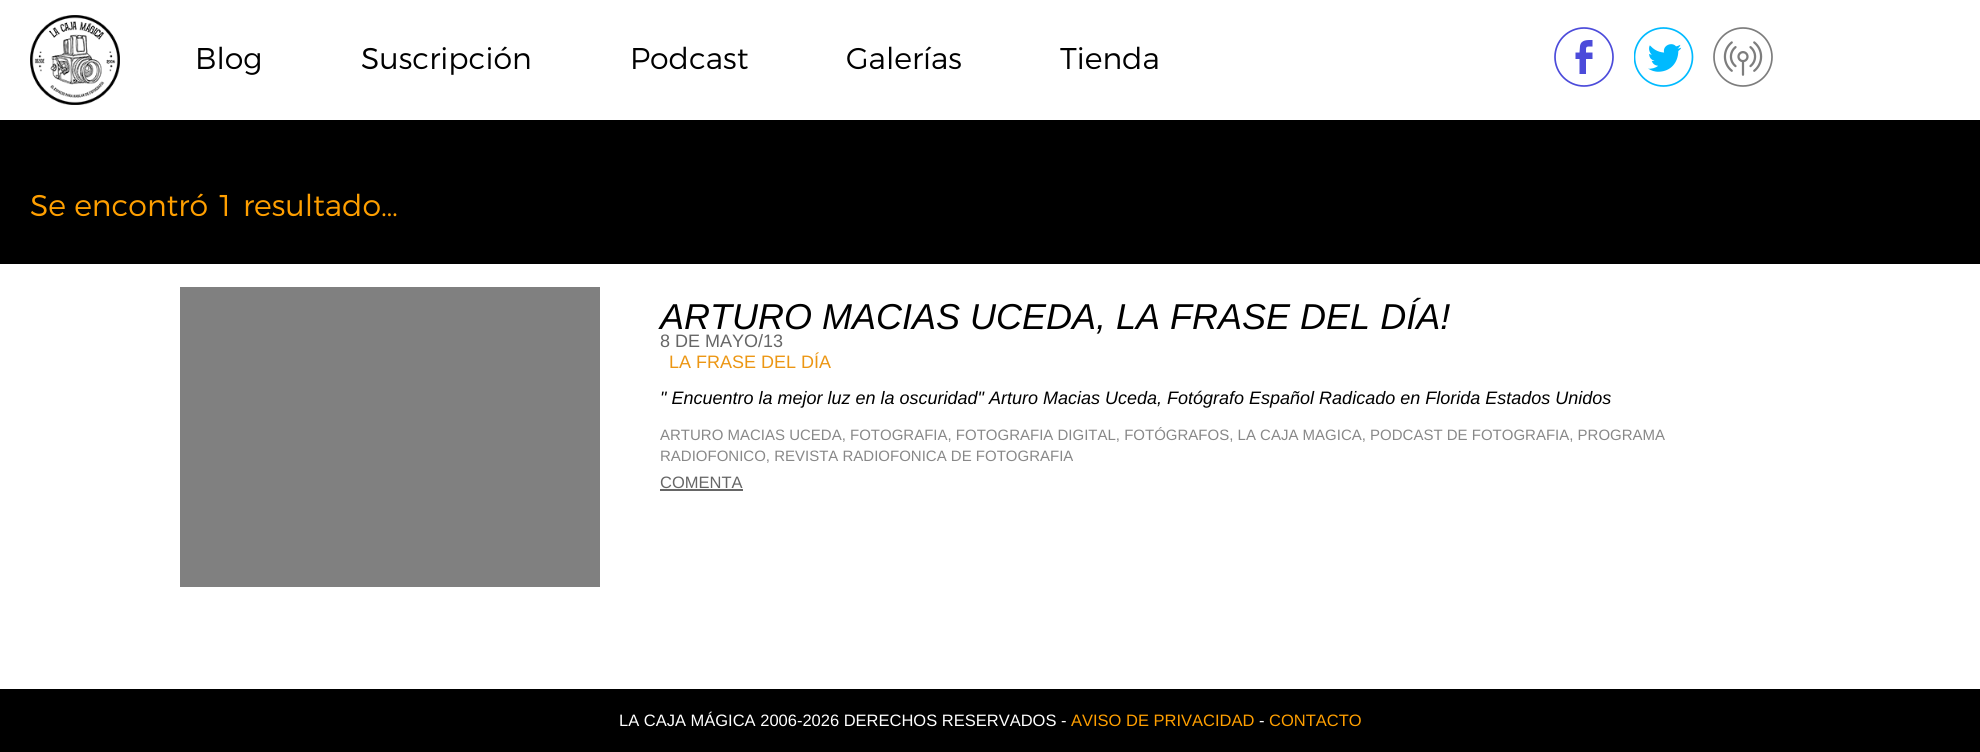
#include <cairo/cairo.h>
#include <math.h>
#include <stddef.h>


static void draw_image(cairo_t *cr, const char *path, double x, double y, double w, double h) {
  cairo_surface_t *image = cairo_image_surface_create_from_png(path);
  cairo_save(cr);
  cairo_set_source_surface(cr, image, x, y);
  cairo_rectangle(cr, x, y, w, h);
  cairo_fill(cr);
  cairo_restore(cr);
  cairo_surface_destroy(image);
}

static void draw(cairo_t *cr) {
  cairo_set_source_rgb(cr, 1, 1, 1);
  cairo_paint(cr);
  draw_image(cr, "images/1.png", 30, 15, 90, 90);
  cairo_arc(cr, 1584, 57, 29, 0, 2 * M_PI);
  cairo_set_source_rgb(cr, 76 / 255.0, 75 / 255.0, 218 / 255.0);
  cairo_set_line_width(cr, 1.7);
  cairo_stroke(cr);
  draw_image(cr, "images/2.png", 1634, 27, 60, 60);
  draw_image(cr, "images/3.png", 1713, 27, 60, 60);
  cairo_set_fill_rule(cr, CAIRO_FILL_RULE_EVEN_ODD);
  cairo_new_path(cr);
  cairo_move_to(cr, 1592.5, 46.5);
  cairo_curve_to(cr, 1585.5, 46.5, 1586, 46, 1586, 52.5);
  cairo_line_to(cr, 1592.5, 52.5);
  cairo_line_to(cr, 1592.5, 59);
  cairo_line_to(cr, 1586, 59);
  cairo_line_to(cr, 1586, 74);
  cairo_line_to(cr, 1579.5, 74);
  cairo_line_to(cr, 1579.5, 59);
  cairo_line_to(cr, 1575.5, 59);
  cairo_line_to(cr, 1575.5, 52.5);
  cairo_line_to(cr, 1579.5, 52.5);
  cairo_line_to(cr, 1580, 46);
  cairo_curve_to(cr, 1581, 39.5, 1587.5, 40, 1592.5, 40);
  cairo_close_path(cr);
  cairo_fill(cr);
  cairo_set_source_rgb(cr, 0, 0, 0);
  cairo_rectangle(cr, 0, 120, 1980, 144);
  cairo_fill(cr);
  cairo_set_source_rgb(cr, 128 / 255.0, 128 / 255.0, 128 / 255.0);
  cairo_rectangle(cr, 180, 287, 420, 300);
  cairo_fill(cr);
  cairo_set_source_rgb(cr, 102 / 255.0, 102 / 255.0, 102 / 255.0);
  cairo_rectangle(cr, 660, 489, 83, 2);
  cairo_fill(cr);
  cairo_set_source_rgb(cr, 0, 0, 0);
  cairo_rectangle(cr, 0, 689, 1980, 63);
  cairo_fill(cr);
  cairo_select_font_face(cr, "Montserrat Light", CAIRO_FONT_SLANT_NORMAL, CAIRO_FONT_WEIGHT_NORMAL);
  cairo_set_font_size(cr, 30);
  cairo_move_to(cr, 195, 69);
  cairo_show_text(cr, "Blog");
  cairo_move_to(cr, 361, 69);
  cairo_show_text(cr, "Suscripción");
  cairo_move_to(cr, 630, 69);
  cairo_show_text(cr, "Podcast");
  cairo_move_to(cr, 846, 69);
  cairo_show_text(cr, "Galerías");
  cairo_move_to(cr, 1060, 69);
  cairo_show_text(cr, "Tienda");
  cairo_set_source_rgb(cr, 1, 159 / 255.0, 0);
  cairo_move_to(cr, 30, 216);
  cairo_show_text(cr, "Se encontró 1 resultado…");
  cairo_select_font_face(cr, "Liberation Sans", CAIRO_FONT_SLANT_ITALIC, CAIRO_FONT_WEIGHT_NORMAL);
  cairo_set_font_size(cr, 36);
  cairo_set_source_rgb(cr, 0, 0, 0);
  cairo_move_to(cr, 660, 329);
  cairo_show_text(cr, "ARTURO MACIAS UCEDA, LA FRASE DEL DÍA!");
  cairo_select_font_face(cr, "Liberation Sans", CAIRO_FONT_SLANT_NORMAL, CAIRO_FONT_WEIGHT_NORMAL);
  cairo_set_font_size(cr, 18);
  cairo_set_source_rgb(cr, 102 / 255.0, 102 / 255.0, 102 / 255.0);
  cairo_move_to(cr, 660, 347);
  cairo_show_text(cr, "8 DE MAYO/13");
  cairo_set_source_rgb(cr, 236 / 255.0, 150 / 255.0, 19 / 255.0);
  cairo_move_to(cr, 669, 368);
  cairo_show_text(cr, "LA FRASE DEL DÍA");
  cairo_select_font_face(cr, "Liberation Sans", CAIRO_FONT_SLANT_ITALIC, CAIRO_FONT_WEIGHT_NORMAL);
  cairo_set_source_rgb(cr, 0, 0, 0);
  cairo_move_to(cr, 660, 404);
  cairo_show_text(cr, "\" Encuentro la mejor luz en la oscuridad\" Arturo Macias Uceda, Fotógrafo Español Radicado en Florida Estados Unidos");
  cairo_select_font_face(cr, "Liberation Sans", CAIRO_FONT_SLANT_NORMAL, CAIRO_FONT_WEIGHT_NORMAL);
  cairo_set_font_size(cr, 15);
  cairo_set_source_rgb(cr, 136 / 255.0, 136 / 255.0, 136 / 255.0);
  cairo_move_to(cr, 660, 440);
  cairo_show_text(cr, "ARTURO MACIAS UCEDA, FOTOGRAFIA, FOTOGRAFIA DIGITAL, FOTÓGRAFOS, LA CAJA MAGICA, PODCAST DE FOTOGRAFIA, PROGRAMA");
  cairo_move_to(cr, 660, 461);
  cairo_show_text(cr, "RADIOFONICO, REVISTA RADIOFONICA DE FOTOGRAFIA");
  cairo_set_font_size(cr, 16.5);
  cairo_set_source_rgb(cr, 102 / 255.0, 102 / 255.0, 102 / 255.0);
  cairo_move_to(cr, 660, 488);
  cairo_show_text(cr, "COMENTA");
  cairo_set_source_rgb(cr, 1, 1, 1);
  cairo_move_to(cr, 619, 726);
  cairo_show_text(cr, "LA CAJA MÁGICA 2006-2026 DERECHOS RESERVADOS -");
  cairo_set_source_rgb(cr, 1, 159 / 255.0, 0);
  cairo_move_to(cr, 1071, 726);
  cairo_show_text(cr, "AVISO DE PRIVACIDAD");
  cairo_set_source_rgb(cr, 1, 1, 1);
  cairo_move_to(cr, 1259, 726);
  cairo_show_text(cr, "-");
  cairo_set_source_rgb(cr, 1, 159 / 255.0, 0);
  cairo_move_to(cr, 1269, 726);
  cairo_show_text(cr, "CONTACTO");
}

int main(void) {
  cairo_surface_t *surface = cairo_image_surface_create(CAIRO_FORMAT_RGB24, 1980, 752);
  cairo_t *cr = cairo_create(surface);
  cairo_font_options_t *options = cairo_font_options_create();
  cairo_font_options_set_hint_metrics(options, CAIRO_HINT_METRICS_OFF);
  cairo_font_options_set_hint_style(options, CAIRO_HINT_STYLE_NONE);
  cairo_set_font_options(cr, options);
  cairo_set_miter_limit(cr, 4);
  draw(cr);
  cairo_surface_write_to_png(surface, "out.png");
  cairo_font_options_destroy(options);
  cairo_destroy(cr);
  cairo_surface_destroy(surface);
  return 0;
}
